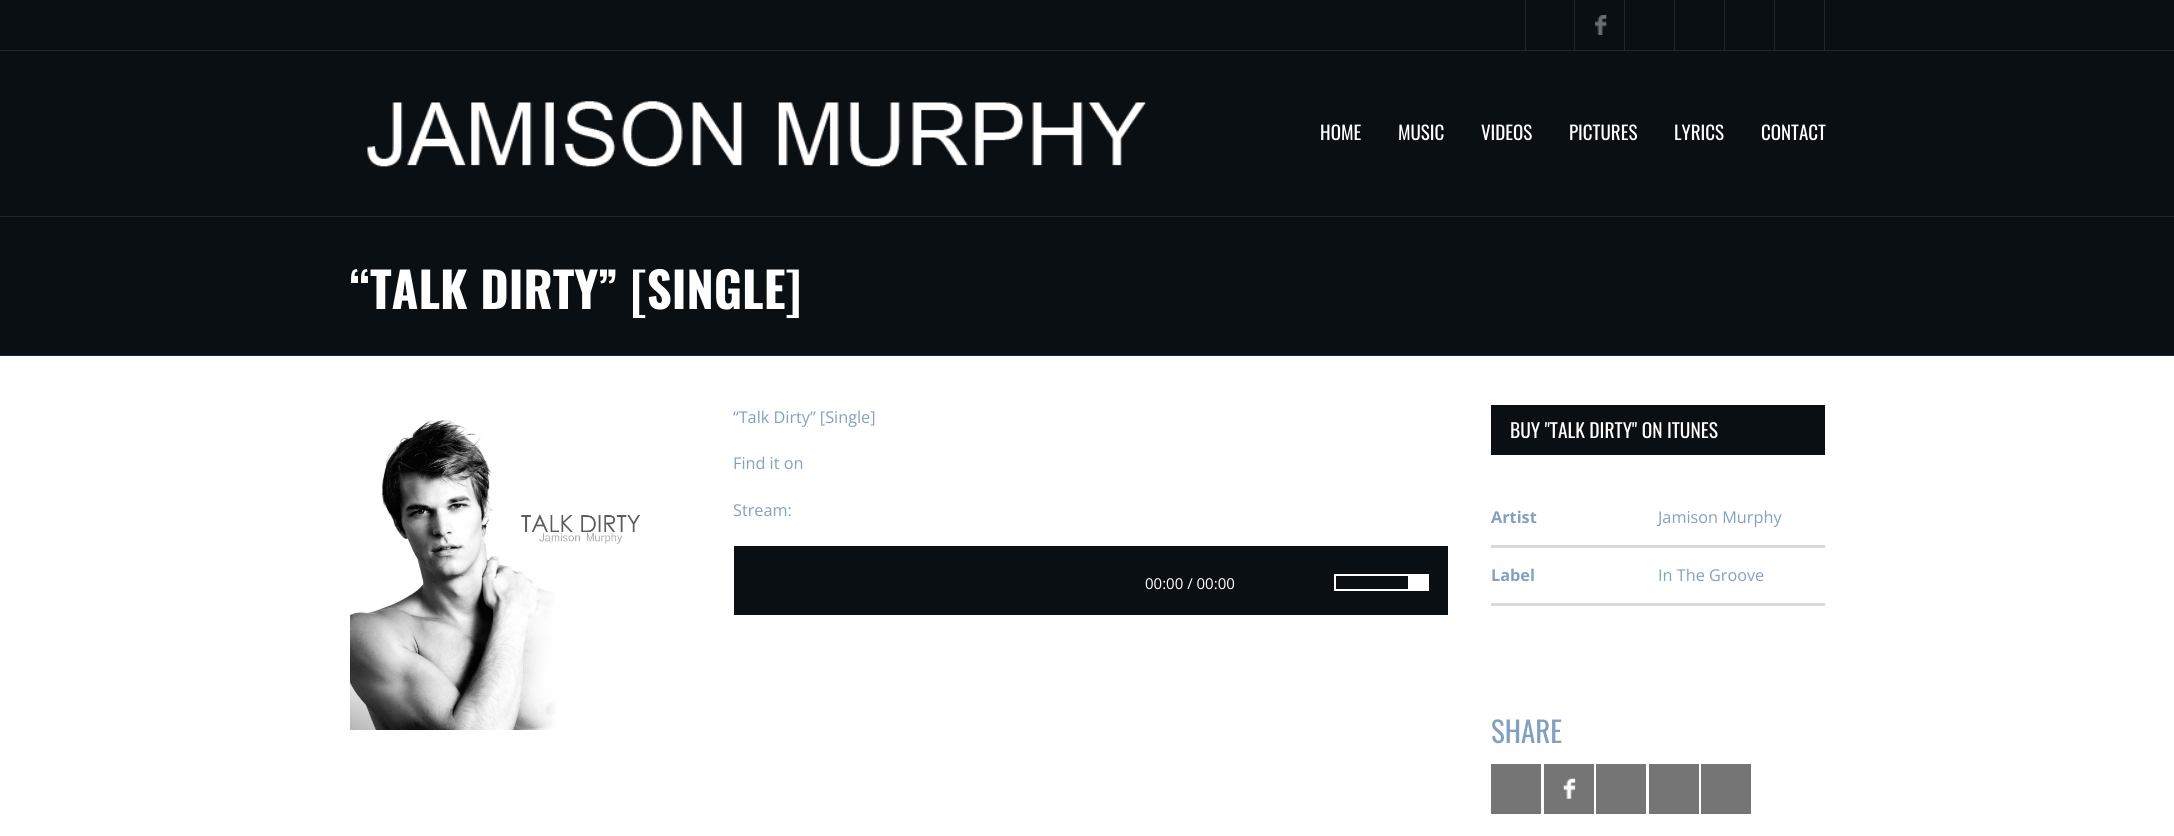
#include <cairo/cairo.h>
#include <math.h>
#include <stddef.h>


static void draw_image(cairo_t *cr, const char *path, double x, double y, double w, double h) {
  cairo_surface_t *image = cairo_image_surface_create_from_png(path);
  cairo_save(cr);
  cairo_set_source_surface(cr, image, x, y);
  cairo_rectangle(cr, x, y, w, h);
  cairo_fill(cr);
  cairo_restore(cr);
  cairo_surface_destroy(image);
}

static void draw(cairo_t *cr) {
  cairo_set_source_rgb(cr, 10 / 255.0, 15 / 255.0, 20 / 255.0);
  cairo_paint(cr);
  cairo_set_source_rgb(cr, 35 / 255.0, 39 / 255.0, 44 / 255.0);
  cairo_rectangle(cr, 0, 50, 2174, 1);
  cairo_fill(cr);
  cairo_rectangle(cr, 1574, 0, 1, 50);
  cairo_fill(cr);
  cairo_rectangle(cr, 1525, 0, 1, 50);
  cairo_fill(cr);
  cairo_rectangle(cr, 1624, 0, 1, 50);
  cairo_fill(cr);
  draw_image(cr, "images/1.png", 1594, 15, 13, 20);
  cairo_rectangle(cr, 1674, 0, 1, 50);
  cairo_fill(cr);
  cairo_rectangle(cr, 1724, 0, 1, 50);
  cairo_fill(cr);
  cairo_rectangle(cr, 1774, 0, 1, 50);
  cairo_fill(cr);
  cairo_rectangle(cr, 1824, 0, 1, 50);
  cairo_fill(cr);
  cairo_rectangle(cr, 0, 216, 2174, 1);
  cairo_fill(cr);
  draw_image(cr, "images/2.png", 367, 101, 780, 66);
  cairo_rectangle(cr, 0, 355, 2174, 1);
  cairo_fill(cr);
  cairo_set_source_rgb(cr, 1, 1, 1);
  cairo_rectangle(cr, 0, 356, 2174, 480);
  cairo_fill(cr);
  draw_image(cr, "images/3.png", 350, 420, 290, 310);
  cairo_set_source_rgb(cr, 10 / 255.0, 15 / 255.0, 20 / 255.0);
  cairo_rectangle(cr, 734, 546, 714, 69);
  cairo_fill(cr);
  cairo_set_source_rgb(cr, 1, 1, 1);
  cairo_rectangle(cr, 1334, 574, 95, 17);
  cairo_fill(cr);
  cairo_set_source_rgb(cr, 10 / 255.0, 15 / 255.0, 20 / 255.0);
  cairo_rectangle(cr, 1336, 576, 72, 13);
  cairo_fill(cr);
  cairo_rectangle(cr, 1491, 405, 334, 50);
  cairo_fill(cr);
  cairo_set_source_rgb(cr, 217 / 255.0, 217 / 255.0, 217 / 255.0);
  cairo_rectangle(cr, 1491, 545, 334, 3);
  cairo_fill(cr);
  cairo_rectangle(cr, 1491, 603, 334, 3);
  cairo_fill(cr);
  cairo_set_source_rgb(cr, 117 / 255.0, 117 / 255.0, 117 / 255.0);
  cairo_rectangle(cr, 1491, 764, 50, 50);
  cairo_fill(cr);
  cairo_rectangle(cr, 1544, 764, 50, 50);
  cairo_fill(cr);
  draw_image(cr, "images/4.png", 1563, 778, 13, 21);
  cairo_rectangle(cr, 1596, 764, 50, 50);
  cairo_fill(cr);
  cairo_rectangle(cr, 1649, 764, 50, 50);
  cairo_fill(cr);
  cairo_rectangle(cr, 1701, 764, 50, 50);
  cairo_fill(cr);
  cairo_select_font_face(cr, "Oswald", CAIRO_FONT_SLANT_NORMAL, CAIRO_FONT_WEIGHT_NORMAL);
  cairo_set_font_size(cr, 19);
  cairo_set_source_rgb(cr, 1, 1, 1);
  cairo_move_to(cr, 1320, 140);
  cairo_show_text(cr, "HOME");
  cairo_move_to(cr, 1398, 140);
  cairo_show_text(cr, "MUSIC");
  cairo_move_to(cr, 1481, 140);
  cairo_show_text(cr, "VIDEOS");
  cairo_move_to(cr, 1569, 140);
  cairo_show_text(cr, "PICTURES");
  cairo_move_to(cr, 1674, 140);
  cairo_show_text(cr, "LYRICS");
  cairo_move_to(cr, 1761, 140);
  cairo_show_text(cr, "CONTACT");
  cairo_select_font_face(cr, "Oswald", CAIRO_FONT_SLANT_NORMAL, CAIRO_FONT_WEIGHT_BOLD);
  cairo_set_font_size(cr, 48.75);
  cairo_move_to(cr, 350, 309);
  cairo_show_text(cr, "“TALK DIRTY” [SINGLE]");
  cairo_select_font_face(cr, "Open Sans", CAIRO_FONT_SLANT_NORMAL, CAIRO_FONT_WEIGHT_NORMAL);
  cairo_set_font_size(cr, 16.25);
  cairo_set_source_rgb(cr, 131 / 255.0, 161 / 255.0, 191 / 255.0);
  cairo_move_to(cr, 733, 423);
  cairo_show_text(cr, "“Talk Dirty” [Single]");
  cairo_move_to(cr, 733, 469);
  cairo_show_text(cr, "Find it on");
  cairo_move_to(cr, 733, 516);
  cairo_show_text(cr, "Stream:");
  cairo_set_font_size(cr, 15);
  cairo_set_source_rgb(cr, 1, 1, 1);
  cairo_move_to(cr, 1145, 589);
  cairo_show_text(cr, "00:00 / 00:00");
  cairo_select_font_face(cr, "Oswald", CAIRO_FONT_SLANT_NORMAL, CAIRO_FONT_WEIGHT_NORMAL);
  cairo_set_font_size(cr, 19.5);
  cairo_move_to(cr, 1510, 438);
  cairo_show_text(cr, "BUY \"TALK DIRTY\" ON ITUNES");
  cairo_select_font_face(cr, "Open Sans", CAIRO_FONT_SLANT_NORMAL, CAIRO_FONT_WEIGHT_BOLD);
  cairo_set_font_size(cr, 16.25);
  cairo_set_source_rgb(cr, 131 / 255.0, 161 / 255.0, 191 / 255.0);
  cairo_move_to(cr, 1491, 523);
  cairo_show_text(cr, "Artist");
  cairo_select_font_face(cr, "Open Sans", CAIRO_FONT_SLANT_NORMAL, CAIRO_FONT_WEIGHT_NORMAL);
  cairo_move_to(cr, 1658, 523);
  cairo_show_text(cr, "Jamison Murphy");
  cairo_select_font_face(cr, "Open Sans", CAIRO_FONT_SLANT_NORMAL, CAIRO_FONT_WEIGHT_BOLD);
  cairo_move_to(cr, 1491, 581);
  cairo_show_text(cr, "Label");
  cairo_select_font_face(cr, "Open Sans", CAIRO_FONT_SLANT_NORMAL, CAIRO_FONT_WEIGHT_NORMAL);
  cairo_move_to(cr, 1658, 581);
  cairo_show_text(cr, "In The Groove");
  cairo_select_font_face(cr, "Oswald", CAIRO_FONT_SLANT_NORMAL, CAIRO_FONT_WEIGHT_NORMAL);
  cairo_set_font_size(cr, 29);
  cairo_move_to(cr, 1491, 743);
  cairo_show_text(cr, "SHARE");
}

int main(void) {
  cairo_surface_t *surface = cairo_image_surface_create(CAIRO_FORMAT_RGB24, 2174, 836);
  cairo_t *cr = cairo_create(surface);
  cairo_font_options_t *options = cairo_font_options_create();
  cairo_font_options_set_hint_metrics(options, CAIRO_HINT_METRICS_OFF);
  cairo_font_options_set_hint_style(options, CAIRO_HINT_STYLE_NONE);
  cairo_set_font_options(cr, options);
  cairo_set_miter_limit(cr, 4);
  draw(cr);
  cairo_surface_write_to_png(surface, "out.png");
  cairo_font_options_destroy(options);
  cairo_destroy(cr);
  cairo_surface_destroy(surface);
  return 0;
}
